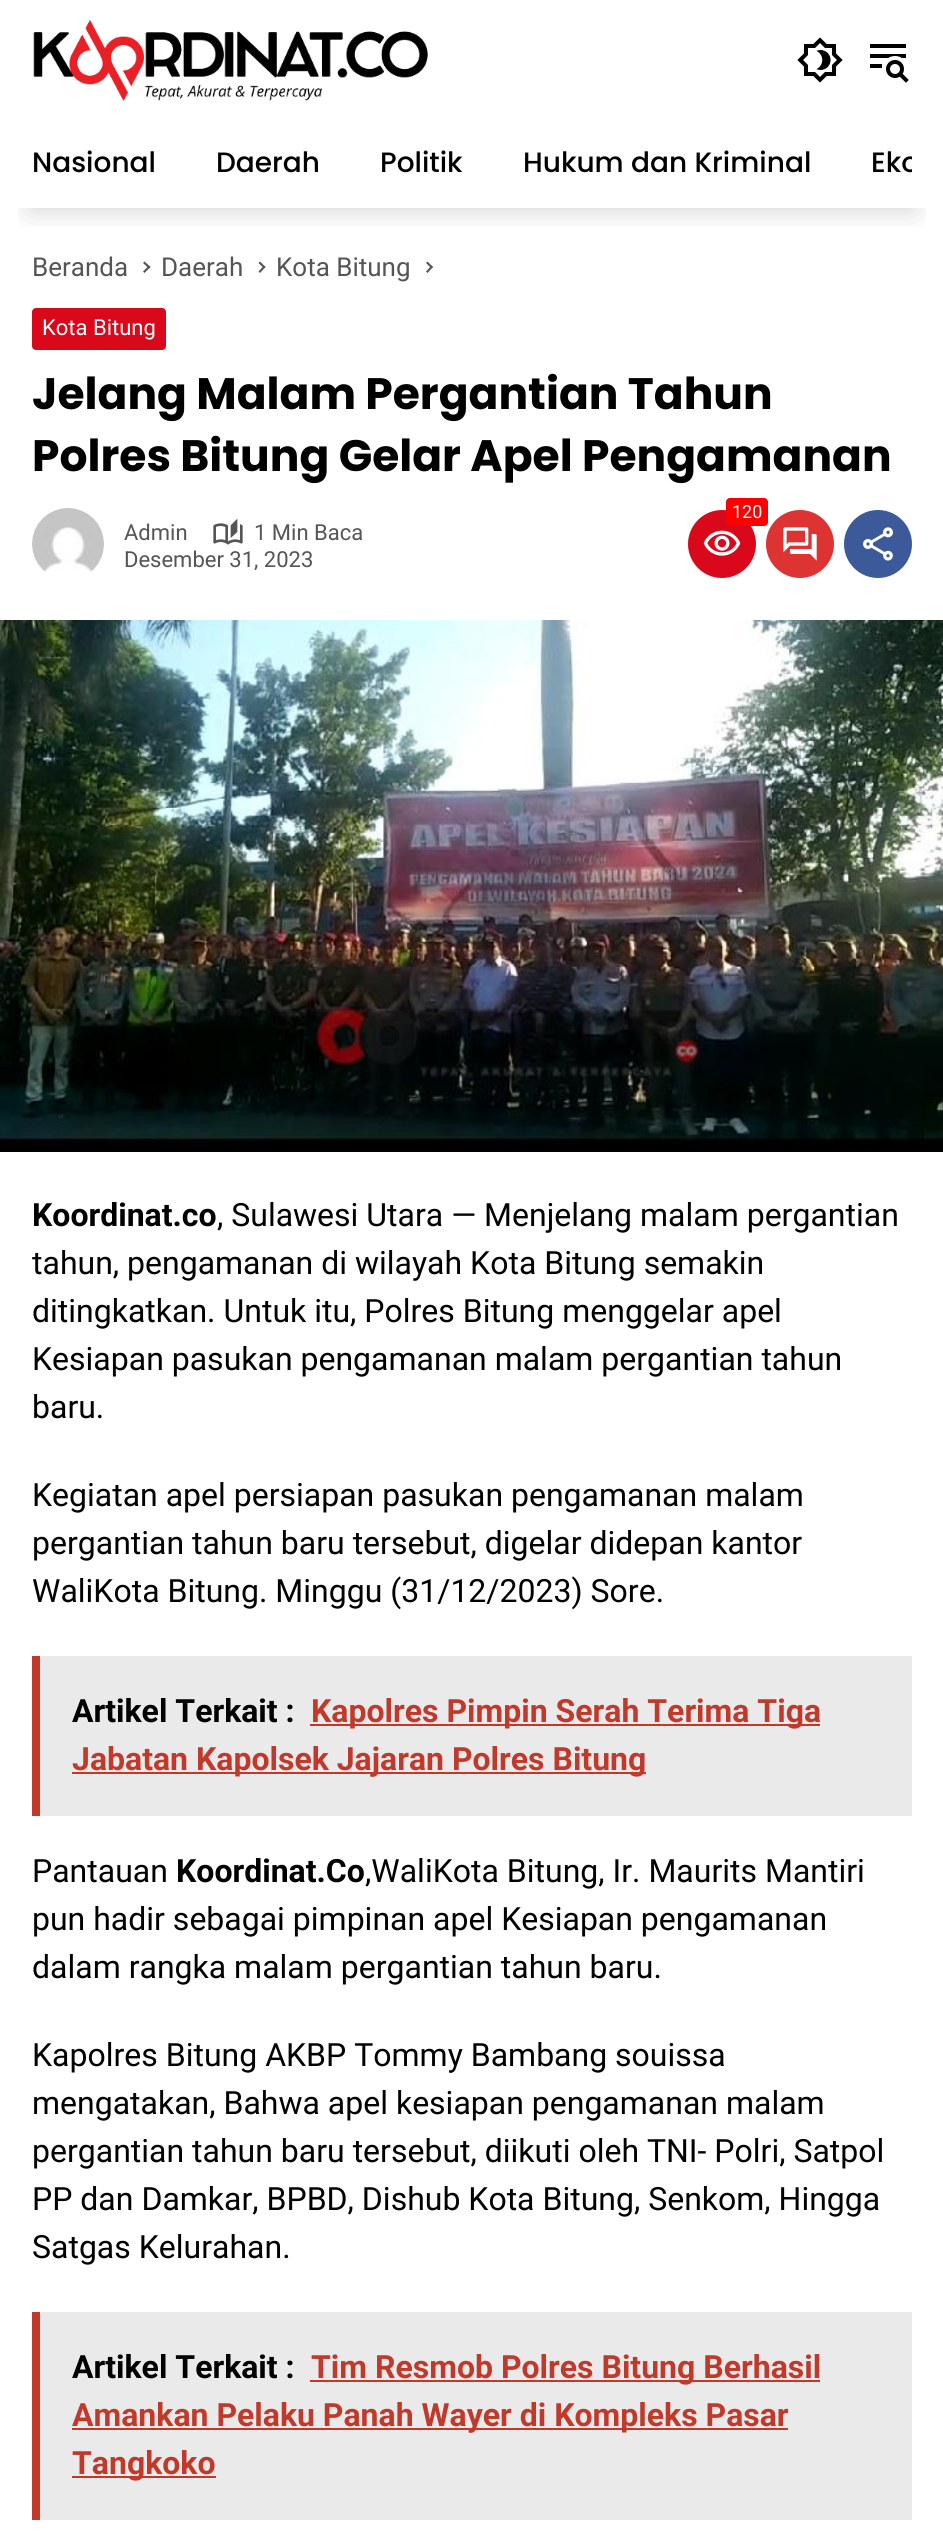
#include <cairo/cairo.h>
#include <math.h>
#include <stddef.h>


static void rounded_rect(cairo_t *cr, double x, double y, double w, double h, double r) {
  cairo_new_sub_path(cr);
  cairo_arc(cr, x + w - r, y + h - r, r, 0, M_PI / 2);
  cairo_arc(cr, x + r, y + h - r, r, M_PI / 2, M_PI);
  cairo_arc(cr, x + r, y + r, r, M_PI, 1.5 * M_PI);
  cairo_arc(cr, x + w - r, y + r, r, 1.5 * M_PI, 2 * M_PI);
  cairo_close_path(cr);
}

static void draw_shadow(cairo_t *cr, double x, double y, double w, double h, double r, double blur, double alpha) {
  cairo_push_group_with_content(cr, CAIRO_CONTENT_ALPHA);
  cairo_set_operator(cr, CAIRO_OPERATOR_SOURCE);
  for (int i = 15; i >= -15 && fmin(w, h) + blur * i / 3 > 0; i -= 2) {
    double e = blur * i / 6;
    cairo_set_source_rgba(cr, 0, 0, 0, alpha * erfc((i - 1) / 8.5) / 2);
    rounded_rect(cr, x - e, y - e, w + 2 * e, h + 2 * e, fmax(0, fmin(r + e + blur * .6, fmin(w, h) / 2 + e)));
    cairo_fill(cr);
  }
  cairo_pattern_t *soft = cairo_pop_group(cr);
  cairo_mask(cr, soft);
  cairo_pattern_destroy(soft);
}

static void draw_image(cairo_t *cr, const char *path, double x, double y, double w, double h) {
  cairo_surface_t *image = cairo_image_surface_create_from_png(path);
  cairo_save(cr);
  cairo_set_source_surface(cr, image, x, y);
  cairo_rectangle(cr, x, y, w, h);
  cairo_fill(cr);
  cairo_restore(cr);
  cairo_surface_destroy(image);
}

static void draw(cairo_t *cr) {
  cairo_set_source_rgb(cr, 1, 1, 1);
  cairo_paint(cr);
  draw_image(cr, "images/1.png", 33, 19, 395, 82);
  draw_image(cr, "images/2.png", 797, 37, 46, 46);
  draw_image(cr, "images/3.png", 870, 44, 39, 39);
  cairo_save(cr);
  cairo_rectangle(cr, 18, 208, 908, 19);
  cairo_clip(cr);
  cairo_set_source_rgb(cr, 0, 0, 0);
  draw_shadow(cr, 30, 180, 884, 28, 0, 15, 0.2);
  cairo_restore(cr);
  cairo_set_source_rgb(cr, 85 / 255.0, 85 / 255.0, 85 / 255.0);
  cairo_new_path(cr);
  cairo_move_to(cr, 143, 263);
  cairo_line_to(cr, 144.5, 261.5);
  cairo_line_to(cr, 150.5, 267);
  cairo_line_to(cr, 149, 268.5);
  cairo_close_path(cr);
  cairo_fill(cr);
  cairo_new_path(cr);
  cairo_move_to(cr, 143, 271.5);
  cairo_line_to(cr, 149, 265.5);
  cairo_line_to(cr, 150.5, 267);
  cairo_line_to(cr, 144.5, 273);
  cairo_close_path(cr);
  cairo_fill(cr);
  cairo_new_path(cr);
  cairo_move_to(cr, 258.5, 263);
  cairo_line_to(cr, 260, 261.5);
  cairo_line_to(cr, 265.5, 267);
  cairo_line_to(cr, 264, 268.5);
  cairo_close_path(cr);
  cairo_fill(cr);
  cairo_new_path(cr);
  cairo_move_to(cr, 258.5, 271.5);
  cairo_line_to(cr, 264, 265.5);
  cairo_line_to(cr, 265.5, 267);
  cairo_line_to(cr, 260, 273);
  cairo_close_path(cr);
  cairo_fill(cr);
  cairo_new_path(cr);
  cairo_move_to(cr, 426, 263);
  cairo_line_to(cr, 427.5, 261.5);
  cairo_line_to(cr, 433, 267);
  cairo_line_to(cr, 431.5, 268.5);
  cairo_close_path(cr);
  cairo_fill(cr);
  cairo_new_path(cr);
  cairo_move_to(cr, 426, 271.5);
  cairo_line_to(cr, 431.5, 265.5);
  cairo_line_to(cr, 433, 267);
  cairo_line_to(cr, 427.5, 273);
  cairo_close_path(cr);
  cairo_fill(cr);
  cairo_set_source_rgb(cr, 217 / 255.0, 9 / 255.0, 27 / 255.0);
  rounded_rect(cr, 32, 308, 134, 42, 4);
  cairo_fill(cr);
  draw_image(cr, "images/4.png", 32, 508, 72, 64);
  draw_image(cr, "images/5.png", 213, 518, 30, 27);
  cairo_arc(cr, 722, 544, 34, 0, 2 * M_PI);
  cairo_fill(cr);
  cairo_set_source_rgb(cr, 1, 0, 0);
  rounded_rect(cr, 726, 498, 42, 28, 4);
  cairo_fill(cr);
  draw_image(cr, "images/6.png", 703, 530, 38, 26);
  cairo_set_source_rgb(cr, 221 / 255.0, 51 / 255.0, 51 / 255.0);
  cairo_arc(cr, 800, 544, 34, 0, 2 * M_PI);
  cairo_fill(cr);
  draw_image(cr, "images/7.png", 783, 527, 34, 34);
  cairo_set_source_rgb(cr, 60 / 255.0, 90 / 255.0, 153 / 255.0);
  cairo_arc(cr, 878, 544, 34, 0, 2 * M_PI);
  cairo_fill(cr);
  draw_image(cr, "images/8.png", 863, 527, 30, 34);
  draw_image(cr, "images/9.png", 0, 620, 943, 532);
  cairo_set_source_rgb(cr, 234 / 255.0, 234 / 255.0, 234 / 255.0);
  cairo_rectangle(cr, 40, 1656, 872, 160);
  cairo_fill(cr);
  cairo_set_source_rgb(cr, 192 / 255.0, 57 / 255.0, 43 / 255.0);
  cairo_rectangle(cr, 32, 1656, 8, 160);
  cairo_fill(cr);
  cairo_rectangle(cr, 310, 1724, 510, 2);
  cairo_fill(cr);
  cairo_rectangle(cr, 72, 1772, 574, 2);
  cairo_fill(cr);
  cairo_set_source_rgb(cr, 234 / 255.0, 234 / 255.0, 234 / 255.0);
  cairo_rectangle(cr, 40, 2312, 872, 208);
  cairo_fill(cr);
  cairo_set_source_rgb(cr, 192 / 255.0, 57 / 255.0, 43 / 255.0);
  cairo_rectangle(cr, 32, 2312, 8, 208);
  cairo_fill(cr);
  cairo_rectangle(cr, 310, 2380, 510, 2);
  cairo_fill(cr);
  cairo_rectangle(cr, 72, 2428, 716, 2);
  cairo_fill(cr);
  cairo_rectangle(cr, 72, 2476, 144, 2);
  cairo_fill(cr);
  cairo_select_font_face(cr, "Poppins Medium", CAIRO_FONT_SLANT_NORMAL, CAIRO_FONT_WEIGHT_NORMAL);
  cairo_set_font_size(cr, 28);
  cairo_set_source_rgb(cr, 0, 0, 0);
  cairo_move_to(cr, 32, 172);
  cairo_show_text(cr, "Nasional");
  cairo_move_to(cr, 216, 172);
  cairo_show_text(cr, "Daerah");
  cairo_move_to(cr, 380, 172);
  cairo_show_text(cr, "Politik");
  cairo_move_to(cr, 523, 172);
  cairo_show_text(cr, "Hukum dan Kriminal");
  cairo_save(cr);
  cairo_rectangle(cr, 32, 120, 880, 88);
  cairo_clip(cr);
  cairo_move_to(cr, 871, 172);
  cairo_show_text(cr, "Eko");
  cairo_restore(cr);
  cairo_select_font_face(cr, "Roboto", CAIRO_FONT_SLANT_NORMAL, CAIRO_FONT_WEIGHT_NORMAL);
  cairo_set_font_size(cr, 26);
  cairo_set_source_rgb(cr, 85 / 255.0, 85 / 255.0, 85 / 255.0);
  cairo_move_to(cr, 32, 276);
  cairo_show_text(cr, "Beranda");
  cairo_move_to(cr, 161, 276);
  cairo_show_text(cr, "Daerah");
  cairo_move_to(cr, 276, 276);
  cairo_show_text(cr, "Kota Bitung");
  cairo_set_font_size(cr, 22);
  cairo_set_source_rgb(cr, 1, 1, 1);
  cairo_move_to(cr, 42, 335);
  cairo_show_text(cr, "Kota Bitung");
  cairo_select_font_face(cr, "Poppins", CAIRO_FONT_SLANT_NORMAL, CAIRO_FONT_WEIGHT_BOLD);
  cairo_set_font_size(cr, 44);
  cairo_set_source_rgb(cr, 0, 0, 0);
  cairo_move_to(cr, 32, 409);
  cairo_show_text(cr, "Jelang Malam Pergantian Tahun");
  cairo_move_to(cr, 32, 471);
  cairo_show_text(cr, "Polres Bitung Gelar Apel Pengamanan");
  cairo_select_font_face(cr, "Roboto", CAIRO_FONT_SLANT_NORMAL, CAIRO_FONT_WEIGHT_NORMAL);
  cairo_set_font_size(cr, 22);
  cairo_set_source_rgb(cr, 85 / 255.0, 85 / 255.0, 85 / 255.0);
  cairo_move_to(cr, 124, 540);
  cairo_show_text(cr, "Admin");
  cairo_move_to(cr, 254, 540);
  cairo_show_text(cr, "1 Min Baca");
  cairo_move_to(cr, 124, 567);
  cairo_show_text(cr, "Desember 31, 2023");
  cairo_set_font_size(cr, 18);
  cairo_set_source_rgb(cr, 1, 1, 1);
  cairo_move_to(cr, 732, 518);
  cairo_show_text(cr, "120");
  cairo_select_font_face(cr, "Roboto", CAIRO_FONT_SLANT_NORMAL, CAIRO_FONT_WEIGHT_BOLD);
  cairo_set_font_size(cr, 32);
  cairo_set_source_rgb(cr, 0, 0, 0);
  cairo_move_to(cr, 32, 1226);
  cairo_show_text(cr, "Koordinat.co");
  cairo_select_font_face(cr, "Roboto", CAIRO_FONT_SLANT_NORMAL, CAIRO_FONT_WEIGHT_NORMAL);
  cairo_move_to(cr, 217, 1226);
  cairo_show_text(cr, ", Sulawesi Utara — Menjelang malam pergantian");
  cairo_move_to(cr, 32, 1274);
  cairo_show_text(cr, "tahun, pengamanan di wilayah Kota Bitung semakin");
  cairo_move_to(cr, 32, 1322);
  cairo_show_text(cr, "ditingkatkan. Untuk itu, Polres Bitung menggelar apel");
  cairo_move_to(cr, 32, 1370);
  cairo_show_text(cr, "Kesiapan pasukan pengamanan malam pergantian tahun");
  cairo_move_to(cr, 32, 1418);
  cairo_show_text(cr, "baru.");
  cairo_move_to(cr, 32, 1506);
  cairo_show_text(cr, "Kegiatan apel persiapan pasukan pengamanan malam");
  cairo_move_to(cr, 32, 1554);
  cairo_show_text(cr, "pergantian tahun baru tersebut, digelar didepan kantor");
  cairo_move_to(cr, 32, 1602);
  cairo_show_text(cr, "WaliKota Bitung. Minggu (31/12/2023) Sore.");
  cairo_select_font_face(cr, "Roboto", CAIRO_FONT_SLANT_NORMAL, CAIRO_FONT_WEIGHT_BOLD);
  cairo_move_to(cr, 72, 1722);
  cairo_show_text(cr, "Artikel Terkait :");
  cairo_set_source_rgb(cr, 192 / 255.0, 57 / 255.0, 43 / 255.0);
  cairo_move_to(cr, 311, 1722);
  cairo_show_text(cr, "Kapolres Pimpin Serah Terima Tiga");
  cairo_move_to(cr, 72, 1770);
  cairo_show_text(cr, "Jabatan Kapolsek Jajaran Polres Bitung");
  cairo_select_font_face(cr, "Roboto", CAIRO_FONT_SLANT_NORMAL, CAIRO_FONT_WEIGHT_NORMAL);
  cairo_set_source_rgb(cr, 0, 0, 0);
  cairo_move_to(cr, 32, 1882);
  cairo_show_text(cr, "Pantauan");
  cairo_select_font_face(cr, "Roboto", CAIRO_FONT_SLANT_NORMAL, CAIRO_FONT_WEIGHT_BOLD);
  cairo_move_to(cr, 176, 1882);
  cairo_show_text(cr, "Koordinat.Co");
  cairo_select_font_face(cr, "Roboto", CAIRO_FONT_SLANT_NORMAL, CAIRO_FONT_WEIGHT_NORMAL);
  cairo_move_to(cr, 365, 1882);
  cairo_show_text(cr, ",WaliKota Bitung, Ir. Maurits Mantiri");
  cairo_move_to(cr, 32, 1930);
  cairo_show_text(cr, "pun hadir sebagai pimpinan apel Kesiapan pengamanan");
  cairo_move_to(cr, 32, 1978);
  cairo_show_text(cr, "dalam rangka malam pergantian tahun baru.");
  cairo_move_to(cr, 32, 2066);
  cairo_show_text(cr, "Kapolres Bitung AKBP Tommy Bambang souissa");
  cairo_move_to(cr, 32, 2114);
  cairo_show_text(cr, "mengatakan, Bahwa apel kesiapan pengamanan malam");
  cairo_move_to(cr, 32, 2162);
  cairo_show_text(cr, "pergantian tahun baru tersebut, diikuti oleh TNI- Polri, Satpol");
  cairo_move_to(cr, 32, 2210);
  cairo_show_text(cr, "PP dan Damkar, BPBD, Dishub Kota Bitung, Senkom, Hingga");
  cairo_move_to(cr, 32, 2258);
  cairo_show_text(cr, "Satgas Kelurahan.");
  cairo_select_font_face(cr, "Roboto", CAIRO_FONT_SLANT_NORMAL, CAIRO_FONT_WEIGHT_BOLD);
  cairo_move_to(cr, 72, 2378);
  cairo_show_text(cr, "Artikel Terkait :");
  cairo_set_source_rgb(cr, 192 / 255.0, 57 / 255.0, 43 / 255.0);
  cairo_move_to(cr, 311, 2378);
  cairo_show_text(cr, "Tim Resmob Polres Bitung Berhasil");
  cairo_move_to(cr, 72, 2426);
  cairo_show_text(cr, "Amankan Pelaku Panah Wayer di Kompleks Pasar");
  cairo_move_to(cr, 72, 2474);
  cairo_show_text(cr, "Tangkoko");
}

int main(void) {
  cairo_surface_t *surface = cairo_image_surface_create(CAIRO_FORMAT_RGB24, 943, 2535);
  cairo_t *cr = cairo_create(surface);
  cairo_font_options_t *options = cairo_font_options_create();
  cairo_font_options_set_hint_metrics(options, CAIRO_HINT_METRICS_OFF);
  cairo_font_options_set_hint_style(options, CAIRO_HINT_STYLE_NONE);
  cairo_set_font_options(cr, options);
  cairo_set_miter_limit(cr, 4);
  draw(cr);
  cairo_surface_write_to_png(surface, "out.png");
  cairo_font_options_destroy(options);
  cairo_destroy(cr);
  cairo_surface_destroy(surface);
  return 0;
}
